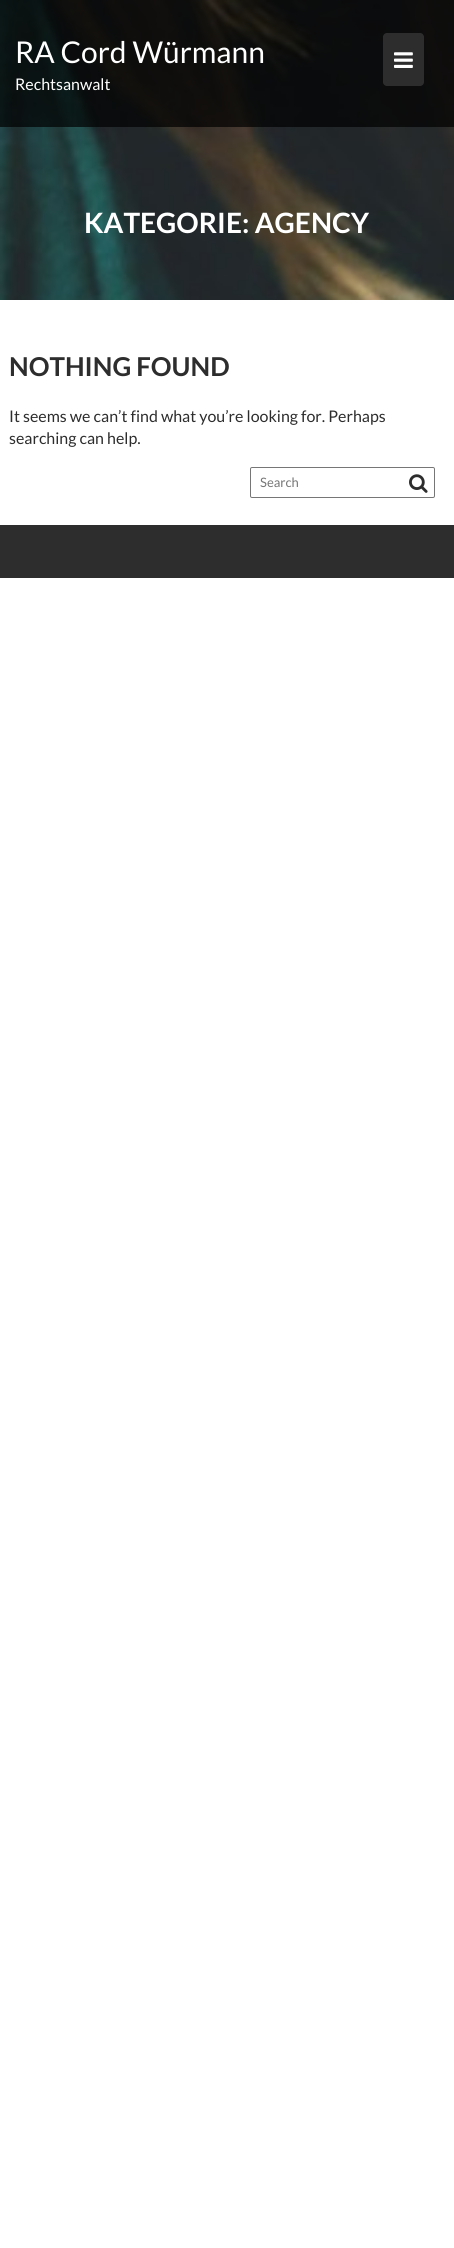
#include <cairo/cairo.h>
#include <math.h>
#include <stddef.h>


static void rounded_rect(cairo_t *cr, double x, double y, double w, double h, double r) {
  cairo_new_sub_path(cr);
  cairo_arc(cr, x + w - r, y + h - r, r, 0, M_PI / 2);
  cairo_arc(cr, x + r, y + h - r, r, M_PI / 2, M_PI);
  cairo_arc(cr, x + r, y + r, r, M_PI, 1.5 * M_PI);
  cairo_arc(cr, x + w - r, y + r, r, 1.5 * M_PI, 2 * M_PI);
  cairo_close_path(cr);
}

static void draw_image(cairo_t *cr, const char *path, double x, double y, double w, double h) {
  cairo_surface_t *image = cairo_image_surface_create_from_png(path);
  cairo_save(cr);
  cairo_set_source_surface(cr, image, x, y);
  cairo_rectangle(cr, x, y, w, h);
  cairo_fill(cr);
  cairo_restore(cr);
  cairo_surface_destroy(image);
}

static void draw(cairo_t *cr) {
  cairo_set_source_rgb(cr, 1, 1, 1);
  cairo_paint(cr);
  draw_image(cr, "images/2.png", 0, 0, 454, 300);
  cairo_set_source_rgba(cr, 0, 0, 0, 0.7);
  cairo_rectangle(cr, 0, 0, 454, 127);
  cairo_fill(cr);
  cairo_set_source_rgb(cr, 45 / 255.0, 45 / 255.0, 45 / 255.0);
  rounded_rect(cr, 383, 33, 41, 53, 4);
  cairo_fill(cr);
  draw_image(cr, "images/1.png", 394, 52, 19, 16);
  rounded_rect(cr, 250.5, 467.5, 184, 30, 1.5);
  cairo_set_source_rgb(cr, 118 / 255.0, 118 / 255.0, 118 / 255.0);
  cairo_set_line_width(cr, 1);
  cairo_stroke(cr);
  draw_image(cr, "images/3.png", 409, 474, 19, 19);
  cairo_set_source_rgb(cr, 45 / 255.0, 45 / 255.0, 45 / 255.0);
  cairo_rectangle(cr, 0, 525, 454, 53);
  cairo_fill(cr);
  cairo_select_font_face(cr, "Lato", CAIRO_FONT_SLANT_NORMAL, CAIRO_FONT_WEIGHT_NORMAL);
  cairo_set_font_size(cr, 30);
  cairo_set_source_rgb(cr, 1, 1, 1);
  cairo_move_to(cr, 15, 63);
  cairo_show_text(cr, "RA Cord Würmann");
  cairo_set_font_size(cr, 16);
  cairo_move_to(cr, 15, 90);
  cairo_show_text(cr, "Rechtsanwalt");
  cairo_select_font_face(cr, "Lato", CAIRO_FONT_SLANT_NORMAL, CAIRO_FONT_WEIGHT_BOLD);
  cairo_set_font_size(cr, 28);
  cairo_move_to(cr, 84, 233);
  cairo_show_text(cr, "KATEGORIE: AGENCY");
  cairo_set_font_size(cr, 26);
  cairo_set_source_rgb(cr, 45 / 255.0, 45 / 255.0, 45 / 255.0);
  cairo_move_to(cr, 9, 376);
  cairo_show_text(cr, "NOTHING FOUND");
  cairo_select_font_face(cr, "Lato", CAIRO_FONT_SLANT_NORMAL, CAIRO_FONT_WEIGHT_NORMAL);
  cairo_set_font_size(cr, 16);
  cairo_move_to(cr, 9, 422);
  cairo_show_text(cr, "It seems we can’t find what you’re looking for. Perhaps");
  cairo_move_to(cr, 9, 444);
  cairo_show_text(cr, "searching can help.");
  cairo_set_font_size(cr, 13);
  cairo_set_source_rgb(cr, 117 / 255.0, 117 / 255.0, 117 / 255.0);
  cairo_move_to(cr, 260, 487);
  cairo_show_text(cr, "Search");
}

int main(void) {
  cairo_surface_t *surface = cairo_image_surface_create(CAIRO_FORMAT_RGB24, 454, 2248);
  cairo_t *cr = cairo_create(surface);
  cairo_font_options_t *options = cairo_font_options_create();
  cairo_font_options_set_hint_metrics(options, CAIRO_HINT_METRICS_OFF);
  cairo_font_options_set_hint_style(options, CAIRO_HINT_STYLE_NONE);
  cairo_set_font_options(cr, options);
  cairo_set_miter_limit(cr, 4);
  draw(cr);
  cairo_surface_write_to_png(surface, "out.png");
  cairo_font_options_destroy(options);
  cairo_destroy(cr);
  cairo_surface_destroy(surface);
  return 0;
}
